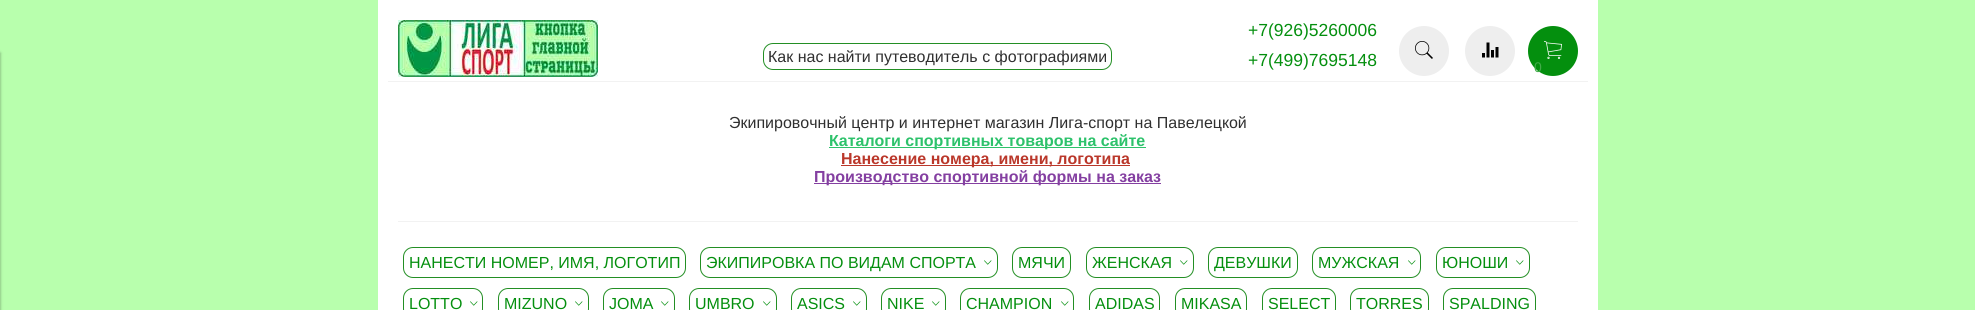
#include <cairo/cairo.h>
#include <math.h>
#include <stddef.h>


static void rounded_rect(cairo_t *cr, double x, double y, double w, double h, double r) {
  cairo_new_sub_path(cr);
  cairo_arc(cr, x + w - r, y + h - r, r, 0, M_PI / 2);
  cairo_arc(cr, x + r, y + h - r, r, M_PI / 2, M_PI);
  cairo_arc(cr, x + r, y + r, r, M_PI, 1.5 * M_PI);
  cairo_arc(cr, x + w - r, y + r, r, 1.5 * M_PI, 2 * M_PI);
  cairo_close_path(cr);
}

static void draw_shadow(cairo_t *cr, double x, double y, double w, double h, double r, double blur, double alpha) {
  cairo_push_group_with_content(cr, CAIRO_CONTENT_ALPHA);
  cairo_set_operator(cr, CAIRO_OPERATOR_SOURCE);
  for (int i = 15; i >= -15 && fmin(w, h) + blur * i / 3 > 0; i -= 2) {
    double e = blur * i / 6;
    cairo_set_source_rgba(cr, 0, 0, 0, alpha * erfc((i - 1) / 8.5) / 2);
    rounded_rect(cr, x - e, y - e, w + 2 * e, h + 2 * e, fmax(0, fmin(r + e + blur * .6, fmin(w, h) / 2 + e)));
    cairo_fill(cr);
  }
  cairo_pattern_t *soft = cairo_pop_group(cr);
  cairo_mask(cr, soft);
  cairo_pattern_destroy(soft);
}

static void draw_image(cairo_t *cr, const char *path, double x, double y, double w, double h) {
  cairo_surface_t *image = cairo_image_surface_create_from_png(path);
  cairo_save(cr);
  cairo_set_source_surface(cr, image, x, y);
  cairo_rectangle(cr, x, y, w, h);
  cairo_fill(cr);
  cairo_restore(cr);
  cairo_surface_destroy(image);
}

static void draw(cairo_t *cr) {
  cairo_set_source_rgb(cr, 184 / 255.0, 1, 173 / 255.0);
  cairo_paint(cr);
  cairo_set_source_rgb(cr, 0, 0, 0);
  draw_shadow(cr, -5, 53, 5, 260, 0, 1.5, 0.4);
  cairo_set_source_rgb(cr, 1, 1, 1);
  cairo_rectangle(cr, 378, 0, 1220, 310);
  cairo_fill(cr);
  draw_image(cr, "images/1.png", 398, 20, 200, 57);
  rounded_rect(cr, 763.5, 43.5, 348, 26, 9.5);
  cairo_set_source_rgb(cr, 35 / 255.0, 143 / 255.0, 36 / 255.0);
  cairo_set_line_width(cr, 1);
  cairo_stroke(cr);
  cairo_set_source_rgb(cr, 238 / 255.0, 238 / 255.0, 238 / 255.0);
  cairo_arc(cr, 1424, 51, 25, 0, 2 * M_PI);
  cairo_fill(cr);
  draw_image(cr, "images/2.png", 1415, 41, 18, 18);
  cairo_arc(cr, 1490, 51, 25, 0, 2 * M_PI);
  cairo_fill(cr);
  draw_image(cr, "images/3.png", 1482, 42, 17, 16);
  cairo_set_source_rgb(cr, 4 / 255.0, 143 / 255.0, 14 / 255.0);
  cairo_arc(cr, 1553, 51, 25, 0, 2 * M_PI);
  cairo_fill(cr);
  draw_image(cr, "images/4.png", 1544, 41, 18, 18);
  cairo_set_source_rgb(cr, 242 / 255.0, 242 / 255.0, 242 / 255.0);
  cairo_rectangle(cr, 388, 81, 1200, 1);
  cairo_fill(cr);
  cairo_set_source_rgb(cr, 45 / 255.0, 194 / 255.0, 107 / 255.0);
  cairo_rectangle(cr, 829, 147, 317, 1);
  cairo_fill(cr);
  cairo_set_source_rgb(cr, 186 / 255.0, 55 / 255.0, 42 / 255.0);
  cairo_rectangle(cr, 841, 165, 289, 1);
  cairo_fill(cr);
  cairo_set_source_rgb(cr, 132 / 255.0, 63 / 255.0, 161 / 255.0);
  cairo_rectangle(cr, 814, 183, 347, 1);
  cairo_fill(cr);
  cairo_set_source_rgb(cr, 242 / 255.0, 242 / 255.0, 242 / 255.0);
  cairo_rectangle(cr, 398, 221, 1180, 1);
  cairo_fill(cr);
  rounded_rect(cr, 403.5, 247.5, 282, 30, 9.5);
  cairo_set_source_rgb(cr, 35 / 255.0, 143 / 255.0, 36 / 255.0);
  cairo_stroke(cr);
  rounded_rect(cr, 700.5, 247.5, 297, 30, 9.5);
  cairo_stroke(cr);
  draw_image(cr, "images/5.png", 984, 260, 8, 5);
  rounded_rect(cr, 1012.5, 247.5, 58, 30, 9.5);
  cairo_stroke(cr);
  rounded_rect(cr, 1086.5, 247.5, 107, 30, 9.5);
  cairo_stroke(cr);
  draw_image(cr, "images/5.png", 1180, 260, 8, 5);
  rounded_rect(cr, 1208.5, 247.5, 89, 30, 9.5);
  cairo_stroke(cr);
  rounded_rect(cr, 1312.5, 247.5, 108, 30, 9.5);
  cairo_stroke(cr);
  draw_image(cr, "images/5.png", 1408, 260, 8, 5);
  rounded_rect(cr, 1436.5, 247.5, 93, 30, 9.5);
  cairo_stroke(cr);
  draw_image(cr, "images/5.png", 1516, 260, 8, 5);
  rounded_rect(cr, 403.5, 288.5, 79, 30, 9.5);
  cairo_stroke(cr);
  draw_image(cr, "images/5.png", 470, 301, 8, 5);
  rounded_rect(cr, 498.5, 288.5, 90, 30, 9.5);
  cairo_stroke(cr);
  draw_image(cr, "images/5.png", 575, 301, 8, 5);
  rounded_rect(cr, 603.5, 288.5, 71, 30, 9.5);
  cairo_stroke(cr);
  draw_image(cr, "images/5.png", 661, 301, 8, 5);
  rounded_rect(cr, 689.5, 288.5, 87, 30, 9.5);
  cairo_stroke(cr);
  draw_image(cr, "images/5.png", 763, 301, 8, 5);
  rounded_rect(cr, 791.5, 288.5, 75, 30, 9.5);
  cairo_stroke(cr);
  draw_image(cr, "images/5.png", 853, 301, 8, 5);
  rounded_rect(cr, 881.5, 288.5, 64, 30, 9.5);
  cairo_stroke(cr);
  draw_image(cr, "images/5.png", 932, 301, 8, 5);
  rounded_rect(cr, 960.5, 288.5, 113, 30, 9.5);
  cairo_stroke(cr);
  draw_image(cr, "images/5.png", 1061, 301, 8, 5);
  rounded_rect(cr, 1089.5, 288.5, 70, 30, 9.5);
  cairo_stroke(cr);
  rounded_rect(cr, 1175.5, 288.5, 71, 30, 9.5);
  cairo_stroke(cr);
  rounded_rect(cr, 1262.5, 288.5, 73, 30, 9.5);
  cairo_stroke(cr);
  rounded_rect(cr, 1350.5, 288.5, 78, 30, 9.5);
  cairo_stroke(cr);
  rounded_rect(cr, 1443.5, 288.5, 92, 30, 9.5);
  cairo_stroke(cr);
  cairo_select_font_face(cr, "Liberation Sans", CAIRO_FONT_SLANT_NORMAL, CAIRO_FONT_WEIGHT_NORMAL);
  cairo_set_font_size(cr, 16);
  cairo_set_source_rgb(cr, 48 / 255.0, 48 / 255.0, 48 / 255.0);
  cairo_move_to(cr, 768, 62);
  cairo_show_text(cr, "Как нас найти путеводитель с фотографиями");
  cairo_set_font_size(cr, 17.5);
  cairo_set_source_rgb(cr, 4 / 255.0, 143 / 255.0, 14 / 255.0);
  cairo_move_to(cr, 1248, 36);
  cairo_show_text(cr, "+7(926)5260006");
  cairo_move_to(cr, 1248, 66);
  cairo_show_text(cr, "+7(499)7695148");
  cairo_set_font_size(cr, 14);
  cairo_set_source_rgb(cr, 66 / 255.0, 171 / 255.0, 74 / 255.0);
  cairo_move_to(cr, 1534, 72);
  cairo_show_text(cr, "0");
  cairo_set_font_size(cr, 16);
  cairo_set_source_rgb(cr, 48 / 255.0, 48 / 255.0, 48 / 255.0);
  cairo_move_to(cr, 729, 128);
  cairo_show_text(cr, "Экипировочный центр и интернет магазин Лига-спорт на Павелецкой");
  cairo_select_font_face(cr, "Liberation Sans", CAIRO_FONT_SLANT_NORMAL, CAIRO_FONT_WEIGHT_BOLD);
  cairo_set_source_rgb(cr, 45 / 255.0, 194 / 255.0, 107 / 255.0);
  cairo_move_to(cr, 829, 146);
  cairo_show_text(cr, "Каталоги спортивных товаров на сайте");
  cairo_set_source_rgb(cr, 186 / 255.0, 55 / 255.0, 42 / 255.0);
  cairo_move_to(cr, 841, 164);
  cairo_show_text(cr, "Нанесение номера, имени, логотипа");
  cairo_set_source_rgb(cr, 132 / 255.0, 63 / 255.0, 161 / 255.0);
  cairo_move_to(cr, 814, 182);
  cairo_show_text(cr, "Производство спортивной формы на заказ");
  cairo_select_font_face(cr, "Liberation Sans", CAIRO_FONT_SLANT_NORMAL, CAIRO_FONT_WEIGHT_NORMAL);
  cairo_set_source_rgb(cr, 4 / 255.0, 143 / 255.0, 14 / 255.0);
  cairo_move_to(cr, 409, 268);
  cairo_show_text(cr, "НАНЕСТИ НОМЕР, ИМЯ, ЛОГОТИП");
  cairo_move_to(cr, 706, 268);
  cairo_show_text(cr, "ЭКИПИРОВКА ПО ВИДАМ СПОРТА");
  cairo_move_to(cr, 1018, 268);
  cairo_show_text(cr, "МЯЧИ");
  cairo_move_to(cr, 1092, 268);
  cairo_show_text(cr, "ЖЕНСКАЯ");
  cairo_move_to(cr, 1214, 268);
  cairo_show_text(cr, "ДЕВУШКИ");
  cairo_move_to(cr, 1318, 268);
  cairo_show_text(cr, "МУЖСКАЯ");
  cairo_move_to(cr, 1442, 268);
  cairo_show_text(cr, "ЮНОШИ");
  cairo_move_to(cr, 409, 309);
  cairo_show_text(cr, "LOTTO");
  cairo_move_to(cr, 504, 309);
  cairo_show_text(cr, "MIZUNO");
  cairo_move_to(cr, 609, 309);
  cairo_show_text(cr, "JOMA");
  cairo_move_to(cr, 695, 309);
  cairo_show_text(cr, "UMBRO");
  cairo_move_to(cr, 797, 309);
  cairo_show_text(cr, "ASICS");
  cairo_move_to(cr, 887, 309);
  cairo_show_text(cr, "NIKE");
  cairo_move_to(cr, 966, 309);
  cairo_show_text(cr, "CHAMPION");
  cairo_move_to(cr, 1095, 309);
  cairo_show_text(cr, "ADIDAS");
  cairo_move_to(cr, 1181, 309);
  cairo_show_text(cr, "MIKASA");
  cairo_move_to(cr, 1268, 309);
  cairo_show_text(cr, "SELECT");
  cairo_move_to(cr, 1356, 309);
  cairo_show_text(cr, "TORRES");
  cairo_move_to(cr, 1449, 309);
  cairo_show_text(cr, "SPALDING");
}

int main(void) {
  cairo_surface_t *surface = cairo_image_surface_create(CAIRO_FORMAT_RGB24, 1975, 310);
  cairo_t *cr = cairo_create(surface);
  cairo_font_options_t *options = cairo_font_options_create();
  cairo_font_options_set_hint_metrics(options, CAIRO_HINT_METRICS_OFF);
  cairo_font_options_set_hint_style(options, CAIRO_HINT_STYLE_NONE);
  cairo_set_font_options(cr, options);
  cairo_set_miter_limit(cr, 4);
  draw(cr);
  cairo_surface_write_to_png(surface, "out.png");
  cairo_font_options_destroy(options);
  cairo_destroy(cr);
  cairo_surface_destroy(surface);
  return 0;
}
